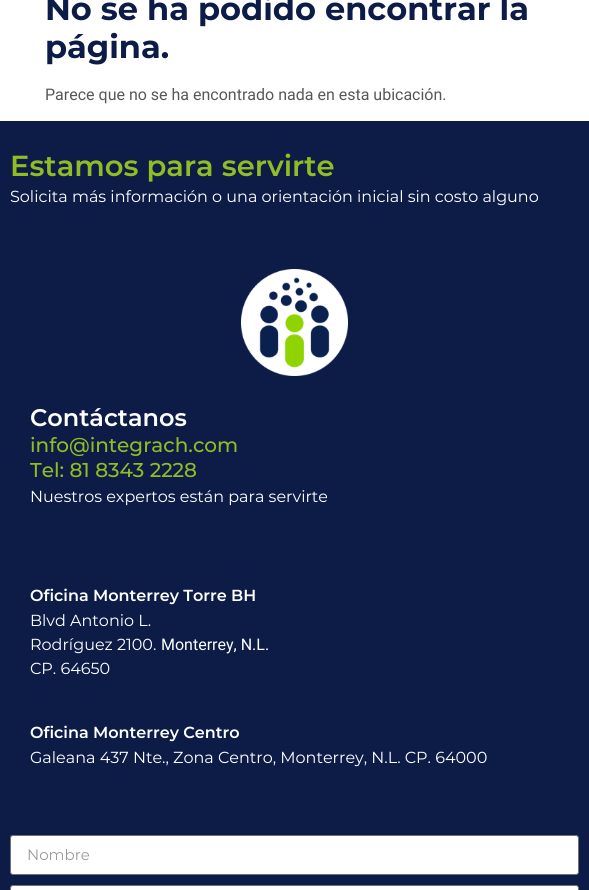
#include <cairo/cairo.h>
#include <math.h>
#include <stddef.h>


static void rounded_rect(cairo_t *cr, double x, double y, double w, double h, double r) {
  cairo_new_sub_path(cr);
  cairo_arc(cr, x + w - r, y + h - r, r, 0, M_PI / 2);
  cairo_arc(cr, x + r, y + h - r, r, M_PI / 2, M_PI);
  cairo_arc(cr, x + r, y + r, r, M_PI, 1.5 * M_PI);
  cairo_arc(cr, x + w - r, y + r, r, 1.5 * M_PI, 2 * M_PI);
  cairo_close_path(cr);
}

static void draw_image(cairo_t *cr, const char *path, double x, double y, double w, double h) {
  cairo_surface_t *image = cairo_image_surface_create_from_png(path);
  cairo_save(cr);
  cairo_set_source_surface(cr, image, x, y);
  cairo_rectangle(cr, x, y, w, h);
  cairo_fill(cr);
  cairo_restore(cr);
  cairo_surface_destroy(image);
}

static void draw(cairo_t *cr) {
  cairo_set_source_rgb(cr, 1, 1, 1);
  cairo_paint(cr);
  cairo_set_source_rgb(cr, 12 / 255.0, 28 / 255.0, 71 / 255.0);
  cairo_rectangle(cr, 0, 121, 589, 769);
  cairo_fill(cr);
  draw_image(cr, "images/1.png", 241, 269, 107, 107);
  cairo_set_source_rgb(cr, 1, 1, 1);
  rounded_rect(cr, 10.5, 835.5, 568, 39, 2.5);
  cairo_fill_preserve(cr);
  cairo_set_source_rgb(cr, 105 / 255.0, 114 / 255.0, 125 / 255.0);
  cairo_set_line_width(cr, 1);
  cairo_stroke(cr);
  cairo_set_source_rgb(cr, 1, 1, 1);
  rounded_rect(cr, 10.5, 885.5, 568, 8, 2.5);
  cairo_fill_preserve(cr);
  cairo_set_source_rgb(cr, 105 / 255.0, 114 / 255.0, 125 / 255.0);
  cairo_stroke(cr);
  cairo_select_font_face(cr, "Montserrat", CAIRO_FONT_SLANT_NORMAL, CAIRO_FONT_WEIGHT_BOLD);
  cairo_set_font_size(cr, 32);
  cairo_set_source_rgb(cr, 12 / 255.0, 28 / 255.0, 71 / 255.0);
  cairo_move_to(cr, 45, 20);
  cairo_show_text(cr, "No se ha podido encontrar la");
  cairo_move_to(cr, 45, 58);
  cairo_show_text(cr, "página.");
  cairo_select_font_face(cr, "Roboto", CAIRO_FONT_SLANT_NORMAL, CAIRO_FONT_WEIGHT_NORMAL);
  cairo_set_font_size(cr, 16);
  cairo_set_source_rgb(cr, 87 / 255.0, 87 / 255.0, 87 / 255.0);
  cairo_move_to(cr, 45, 100);
  cairo_show_text(cr, "Parece que no se ha encontrado nada en esta ubicación.");
  cairo_select_font_face(cr, "Montserrat SemiBold", CAIRO_FONT_SLANT_NORMAL, CAIRO_FONT_WEIGHT_NORMAL);
  cairo_set_font_size(cr, 29);
  cairo_set_source_rgb(cr, 145 / 255.0, 188 / 255.0, 36 / 255.0);
  cairo_move_to(cr, 10, 176);
  cairo_show_text(cr, "Estamos para servirte");
  cairo_select_font_face(cr, "Montserrat", CAIRO_FONT_SLANT_NORMAL, CAIRO_FONT_WEIGHT_NORMAL);
  cairo_set_font_size(cr, 16);
  cairo_set_source_rgb(cr, 1, 1, 1);
  cairo_move_to(cr, 10, 202);
  cairo_show_text(cr, "Solicita más información o una orientación inicial sin costo alguno");
  cairo_select_font_face(cr, "Montserrat SemiBold", CAIRO_FONT_SLANT_NORMAL, CAIRO_FONT_WEIGHT_NORMAL);
  cairo_set_font_size(cr, 24);
  cairo_move_to(cr, 30, 426);
  cairo_show_text(cr, "Contáctanos");
  cairo_select_font_face(cr, "Montserrat Medium", CAIRO_FONT_SLANT_NORMAL, CAIRO_FONT_WEIGHT_NORMAL);
  cairo_set_font_size(cr, 20);
  cairo_set_source_rgb(cr, 145 / 255.0, 188 / 255.0, 36 / 255.0);
  cairo_move_to(cr, 30, 452);
  cairo_show_text(cr, "info@integrach.com");
  cairo_move_to(cr, 30, 477);
  cairo_show_text(cr, "Tel: 81 8343 2228");
  cairo_select_font_face(cr, "Montserrat", CAIRO_FONT_SLANT_NORMAL, CAIRO_FONT_WEIGHT_NORMAL);
  cairo_set_font_size(cr, 16);
  cairo_set_source_rgb(cr, 1, 1, 1);
  cairo_move_to(cr, 30, 502);
  cairo_show_text(cr, "Nuestros expertos están para servirte");
  cairo_select_font_face(cr, "Montserrat SemiBold", CAIRO_FONT_SLANT_NORMAL, CAIRO_FONT_WEIGHT_NORMAL);
  cairo_move_to(cr, 30, 601);
  cairo_show_text(cr, "Oficina Monterrey Torre BH");
  cairo_select_font_face(cr, "Montserrat", CAIRO_FONT_SLANT_NORMAL, CAIRO_FONT_WEIGHT_NORMAL);
  cairo_move_to(cr, 30, 626);
  cairo_show_text(cr, "Blvd Antonio L.");
  cairo_move_to(cr, 30, 650);
  cairo_show_text(cr, "Rodríguez 2100.");
  cairo_select_font_face(cr, "Roboto", CAIRO_FONT_SLANT_NORMAL, CAIRO_FONT_WEIGHT_NORMAL);
  cairo_move_to(cr, 161, 650);
  cairo_show_text(cr, "Monterrey, N.L.");
  cairo_select_font_face(cr, "Montserrat", CAIRO_FONT_SLANT_NORMAL, CAIRO_FONT_WEIGHT_NORMAL);
  cairo_move_to(cr, 30, 674);
  cairo_show_text(cr, "CP. 64650");
  cairo_select_font_face(cr, "Montserrat SemiBold", CAIRO_FONT_SLANT_NORMAL, CAIRO_FONT_WEIGHT_NORMAL);
  cairo_move_to(cr, 30, 738);
  cairo_show_text(cr, "Oficina Monterrey Centro");
  cairo_select_font_face(cr, "Montserrat", CAIRO_FONT_SLANT_NORMAL, CAIRO_FONT_WEIGHT_NORMAL);
  cairo_move_to(cr, 30, 763);
  cairo_show_text(cr, "Galeana 437 Nte., Zona Centro, Monterrey, N.L. CP. 64000");
  cairo_set_font_size(cr, 15);
  cairo_set_source_rgb(cr, 154 / 255.0, 154 / 255.0, 154 / 255.0);
  cairo_move_to(cr, 27, 860);
  cairo_show_text(cr, "Nombre");
}

int main(void) {
  cairo_surface_t *surface = cairo_image_surface_create(CAIRO_FORMAT_RGB24, 589, 890);
  cairo_t *cr = cairo_create(surface);
  cairo_font_options_t *options = cairo_font_options_create();
  cairo_font_options_set_hint_metrics(options, CAIRO_HINT_METRICS_OFF);
  cairo_font_options_set_hint_style(options, CAIRO_HINT_STYLE_NONE);
  cairo_set_font_options(cr, options);
  cairo_set_miter_limit(cr, 4);
  draw(cr);
  cairo_surface_write_to_png(surface, "out.png");
  cairo_font_options_destroy(options);
  cairo_destroy(cr);
  cairo_surface_destroy(surface);
  return 0;
}
